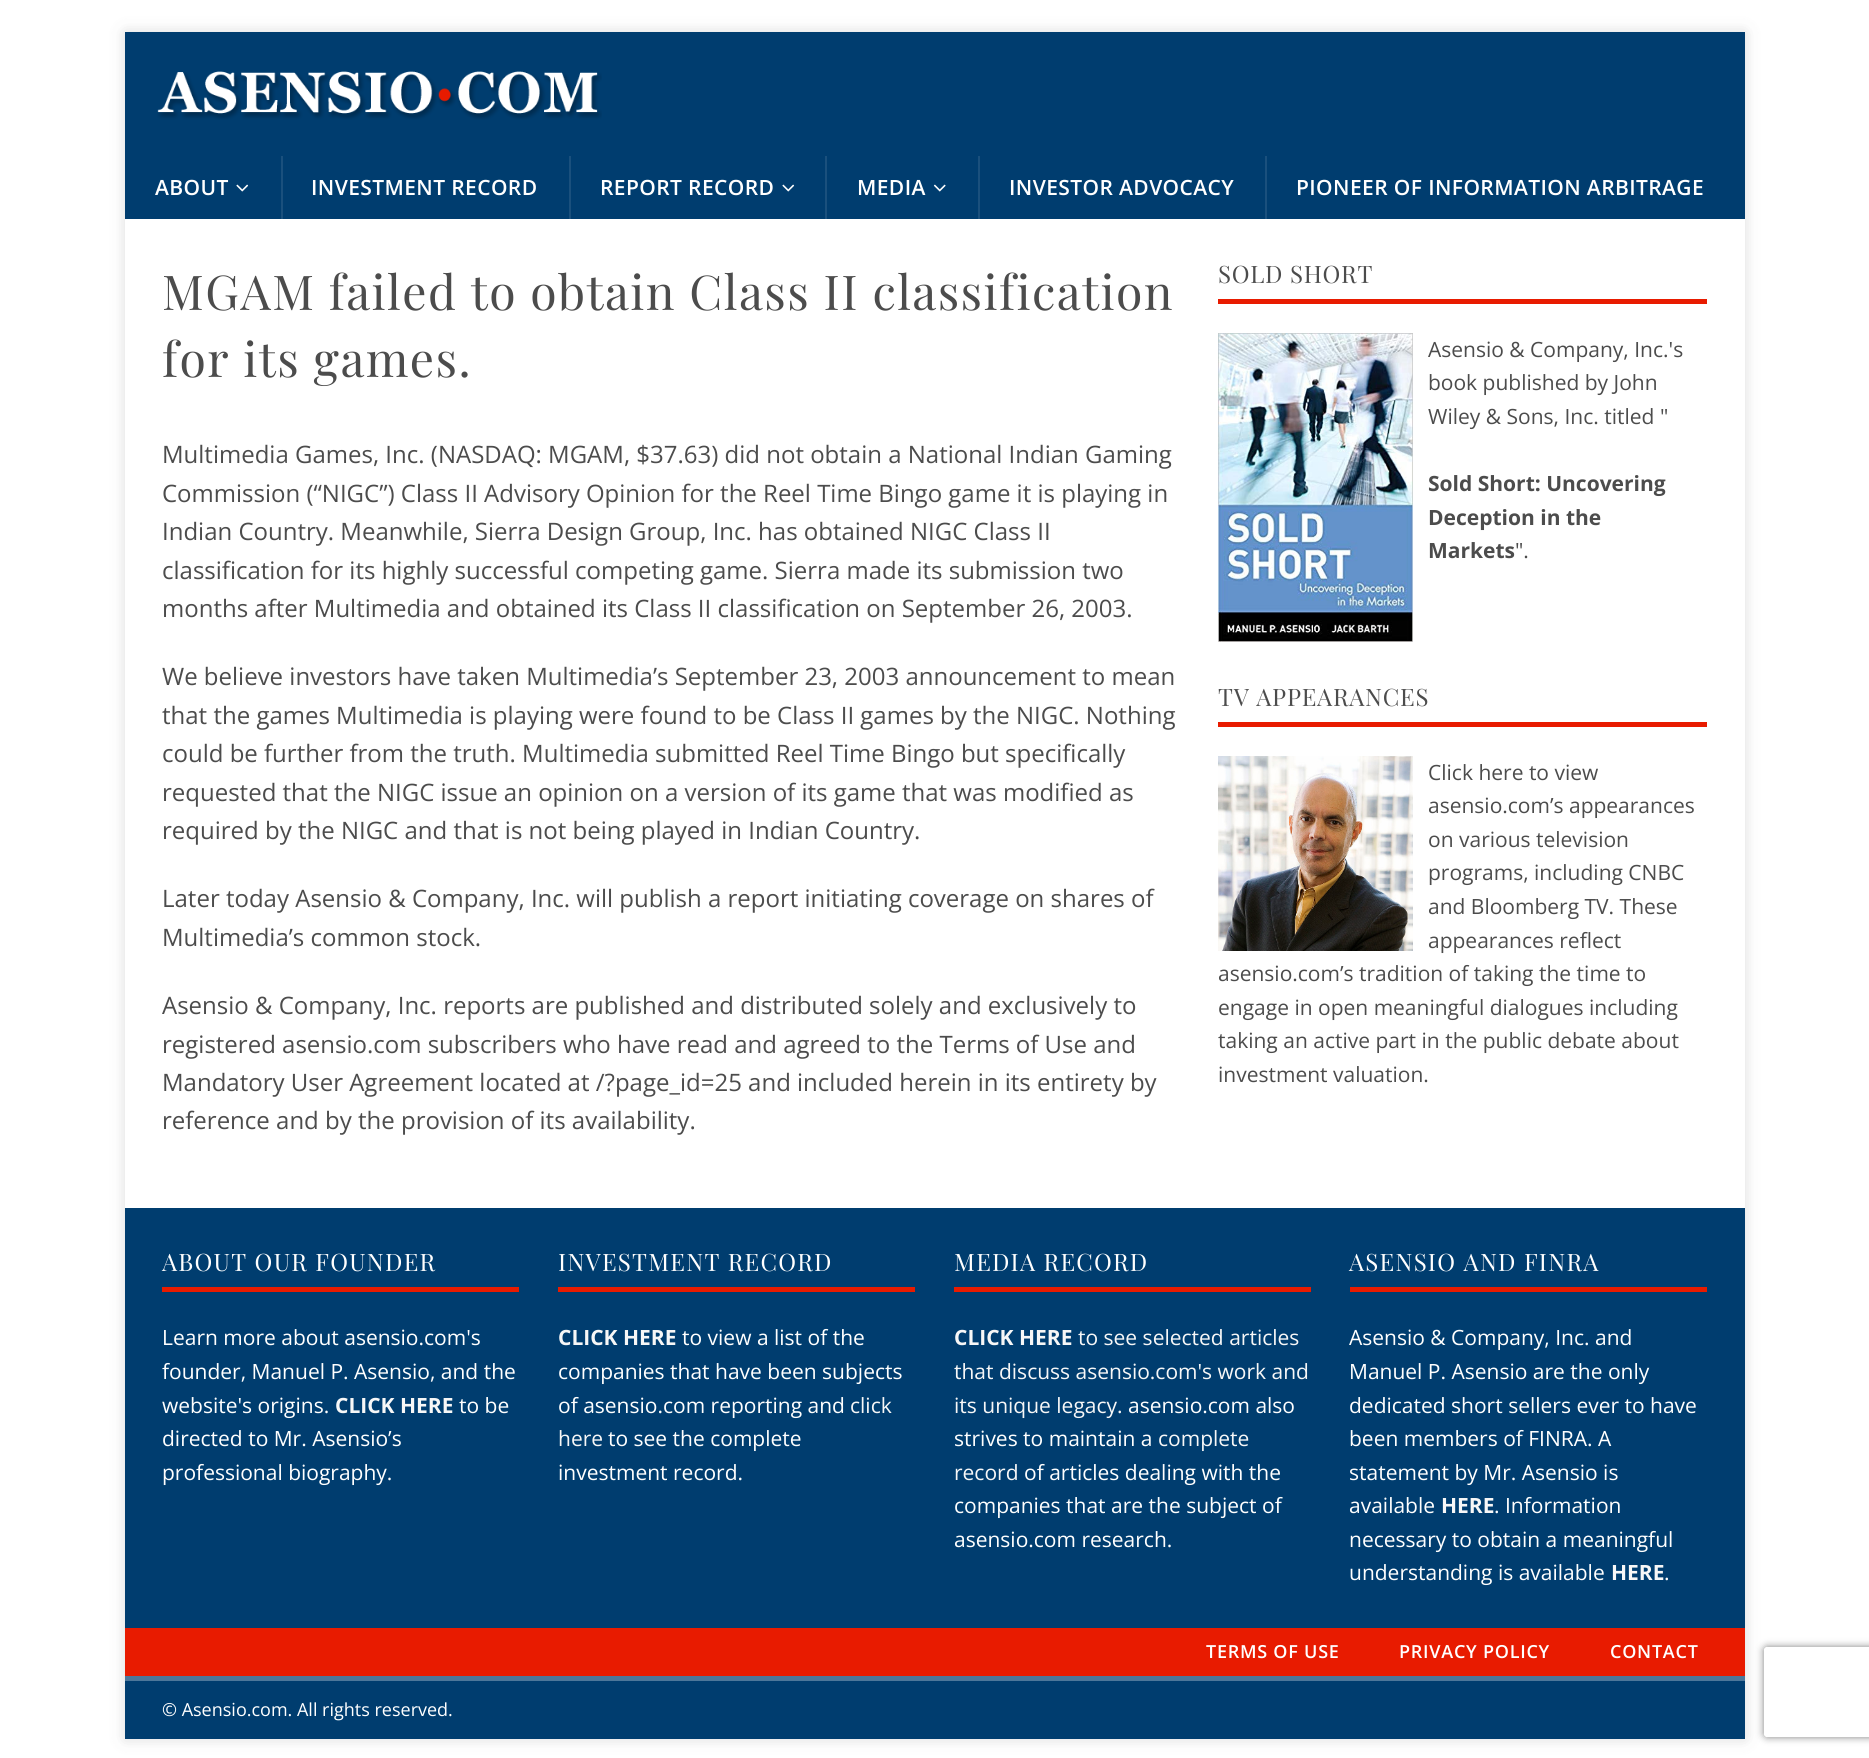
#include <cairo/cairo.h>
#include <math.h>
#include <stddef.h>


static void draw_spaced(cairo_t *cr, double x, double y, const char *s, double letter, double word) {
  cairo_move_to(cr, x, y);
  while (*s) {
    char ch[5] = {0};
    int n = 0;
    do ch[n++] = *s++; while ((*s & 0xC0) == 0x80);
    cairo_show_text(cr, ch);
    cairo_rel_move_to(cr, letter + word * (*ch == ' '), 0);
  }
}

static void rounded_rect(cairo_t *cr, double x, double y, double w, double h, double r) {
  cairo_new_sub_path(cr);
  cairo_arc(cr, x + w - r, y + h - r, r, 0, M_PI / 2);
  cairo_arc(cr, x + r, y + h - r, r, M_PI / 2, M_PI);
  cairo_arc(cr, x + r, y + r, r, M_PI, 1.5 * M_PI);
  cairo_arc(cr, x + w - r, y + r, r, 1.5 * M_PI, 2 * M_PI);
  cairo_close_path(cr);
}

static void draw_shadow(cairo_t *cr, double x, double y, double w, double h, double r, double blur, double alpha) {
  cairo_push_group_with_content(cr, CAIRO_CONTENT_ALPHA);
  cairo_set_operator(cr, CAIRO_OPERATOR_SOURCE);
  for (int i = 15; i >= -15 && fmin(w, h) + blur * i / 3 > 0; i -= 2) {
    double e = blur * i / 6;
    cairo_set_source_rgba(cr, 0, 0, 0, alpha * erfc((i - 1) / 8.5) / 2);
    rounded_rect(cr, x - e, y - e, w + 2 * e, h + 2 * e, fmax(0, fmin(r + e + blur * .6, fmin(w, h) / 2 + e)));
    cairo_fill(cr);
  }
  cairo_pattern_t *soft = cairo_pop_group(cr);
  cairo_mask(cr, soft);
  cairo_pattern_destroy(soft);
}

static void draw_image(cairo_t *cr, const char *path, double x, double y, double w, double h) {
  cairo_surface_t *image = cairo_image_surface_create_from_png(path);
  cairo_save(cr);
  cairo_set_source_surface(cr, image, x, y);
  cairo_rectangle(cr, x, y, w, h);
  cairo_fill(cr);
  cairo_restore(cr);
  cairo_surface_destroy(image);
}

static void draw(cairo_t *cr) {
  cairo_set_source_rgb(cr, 1, 1, 1);
  cairo_paint(cr);
  cairo_set_source_rgb(cr, 50 / 255.0, 50 / 255.0, 50 / 255.0);
  draw_shadow(cr, 125, 32, 1620, 1707, 0, 7.5, 0.17);
  cairo_set_source_rgb(cr, 0, 61 / 255.0, 111 / 255.0);
  cairo_rectangle(cr, 125, 32, 1620, 187);
  cairo_fill(cr);
  draw_image(cr, "images/1.png", 157, 71, 445, 49);
  draw_image(cr, "images/2.png", 236, 184, 13, 8);
  cairo_set_source_rgb(cr, 26 / 255.0, 80 / 255.0, 125 / 255.0);
  cairo_rectangle(cr, 281, 156, 2, 63);
  cairo_fill(cr);
  cairo_rectangle(cr, 569, 156, 2, 63);
  cairo_fill(cr);
  draw_image(cr, "images/2.png", 782, 184, 13, 8);
  cairo_rectangle(cr, 825, 156, 2, 63);
  cairo_fill(cr);
  draw_image(cr, "images/3.png", 933, 184, 13, 8);
  cairo_rectangle(cr, 978, 156, 2, 63);
  cairo_fill(cr);
  cairo_rectangle(cr, 1265, 156, 2, 63);
  cairo_fill(cr);
  cairo_set_source_rgb(cr, 1, 1, 1);
  cairo_rectangle(cr, 125, 219, 1620, 989);
  cairo_fill(cr);
  cairo_set_source_rgb(cr, 232 / 255.0, 27 / 255.0, 0);
  cairo_rectangle(cr, 1218, 299, 489, 5);
  cairo_fill(cr);
  draw_image(cr, "images/4.png", 1218, 333, 195, 309);
  cairo_rectangle(cr, 1218, 722, 489, 5);
  cairo_fill(cr);
  draw_image(cr, "images/5.png", 1218, 756, 195, 195);
  cairo_set_source_rgb(cr, 0, 61 / 255.0, 111 / 255.0);
  cairo_rectangle(cr, 125, 1208, 1620, 420);
  cairo_fill(cr);
  cairo_set_source_rgb(cr, 232 / 255.0, 27 / 255.0, 0);
  cairo_rectangle(cr, 162, 1287, 357, 5);
  cairo_fill(cr);
  cairo_rectangle(cr, 558, 1287, 357, 5);
  cairo_fill(cr);
  cairo_rectangle(cr, 954, 1287, 357, 5);
  cairo_fill(cr);
  cairo_rectangle(cr, 1350, 1287, 357, 5);
  cairo_fill(cr);
  cairo_rectangle(cr, 125, 1628, 1620, 48);
  cairo_fill(cr);
  cairo_set_source_rgb(cr, 0, 61 / 255.0, 111 / 255.0);
  cairo_rectangle(cr, 125, 1681, 1620, 58);
  cairo_fill(cr);
  cairo_set_source_rgb(cr, 77 / 255.0, 119 / 255.0, 154 / 255.0);
  cairo_rectangle(cr, 125, 1676, 1620, 5);
  cairo_fill(cr);
  cairo_save(cr);
  cairo_set_fill_rule(cr, CAIRO_FILL_RULE_EVEN_ODD);
  cairo_new_path(cr);
  cairo_move_to(cr, 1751, 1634);
  cairo_line_to(cr, 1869, 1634);
  cairo_line_to(cr, 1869, 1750);
  cairo_line_to(cr, 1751, 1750);
  cairo_close_path(cr);
  cairo_move_to(cr, 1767, 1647);
  cairo_line_to(cr, 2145, 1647);
  cairo_curve_to(cr, 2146.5, 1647, 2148, 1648.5, 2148, 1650);
  cairo_line_to(cr, 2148, 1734);
  cairo_curve_to(cr, 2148, 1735.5, 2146.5, 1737, 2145, 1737);
  cairo_line_to(cr, 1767, 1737);
  cairo_curve_to(cr, 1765.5, 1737, 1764, 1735.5, 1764, 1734);
  cairo_line_to(cr, 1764, 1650);
  cairo_curve_to(cr, 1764, 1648.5, 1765.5, 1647, 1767, 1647);
  cairo_close_path(cr);
  cairo_clip(cr);
  cairo_set_source_rgb(cr, 128 / 255.0, 128 / 255.0, 128 / 255.0);
  draw_shadow(cr, 1764, 1647, 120, 90, 3, 4, 1);
  cairo_restore(cr);
  cairo_select_font_face(cr, "Open Sans SemiBold", CAIRO_FONT_SLANT_NORMAL, CAIRO_FONT_WEIGHT_NORMAL);
  cairo_set_font_size(cr, 21);
  cairo_set_source_rgb(cr, 1, 1, 1);
  draw_spaced(cr, 155, 195, "ABOUT", 0.4, 0);
  draw_spaced(cr, 311, 195, "INVESTMENT RECORD", 0.4, 0);
  draw_spaced(cr, 600, 195, "REPORT RECORD", 0.4, 0);
  draw_spaced(cr, 857, 195, "MEDIA", 0.4, 0);
  draw_spaced(cr, 1009, 195, "INVESTOR ADVOCACY", 0.4, 0);
  draw_spaced(cr, 1296, 195, "PIONEER OF INFORMATION ARBITRAGE", 0.4, 0);
  cairo_select_font_face(cr, "Playfair Display", CAIRO_FONT_SLANT_NORMAL, CAIRO_FONT_WEIGHT_NORMAL);
  cairo_set_font_size(cr, 48);
  cairo_set_source_rgb(cr, 76 / 255.0, 76 / 255.0, 76 / 255.0);
  draw_spaced(cr, 162, 310, "MGAM failed to obtain Class II classification", 1.45, 0);
  draw_spaced(cr, 162, 377, "for its games.", 1.45, 0);
  cairo_select_font_face(cr, "Open Sans", CAIRO_FONT_SLANT_NORMAL, CAIRO_FONT_WEIGHT_NORMAL);
  cairo_set_font_size(cr, 24);
  cairo_move_to(cr, 162, 463);
  cairo_show_text(cr, "Multimedia Games, Inc. (NASDAQ: MGAM, $37.63) did not obtain a National Indian Gaming");
  cairo_move_to(cr, 162, 502);
  cairo_show_text(cr, "Commission (“NIGC”) Class II Advisory Opinion for the Reel Time Bingo game it is playing in");
  cairo_move_to(cr, 162, 540);
  cairo_show_text(cr, "Indian Country. Meanwhile, Sierra Design Group, Inc. has obtained NIGC Class II");
  cairo_move_to(cr, 162, 579);
  cairo_show_text(cr, "classification for its highly successful competing game. Sierra made its submission two");
  cairo_move_to(cr, 162, 617);
  cairo_show_text(cr, "months after Multimedia and obtained its Class II classification on September 26, 2003.");
  cairo_move_to(cr, 162, 685);
  cairo_show_text(cr, "We believe investors have taken Multimedia’s September 23, 2003 announcement to mean");
  cairo_move_to(cr, 162, 724);
  cairo_show_text(cr, "that the games Multimedia is playing were found to be Class II games by the NIGC. Nothing");
  cairo_move_to(cr, 162, 762);
  cairo_show_text(cr, "could be further from the truth. Multimedia submitted Reel Time Bingo but specifically");
  cairo_move_to(cr, 162, 801);
  cairo_show_text(cr, "requested that the NIGC issue an opinion on a version of its game that was modified as");
  cairo_move_to(cr, 162, 839);
  cairo_show_text(cr, "required by the NIGC and that is not being played in Indian Country.");
  cairo_move_to(cr, 162, 907);
  cairo_show_text(cr, "Later today Asensio & Company, Inc. will publish a report initiating coverage on shares of");
  cairo_move_to(cr, 162, 946);
  cairo_show_text(cr, "Multimedia’s common stock.");
  cairo_move_to(cr, 162, 1014);
  cairo_show_text(cr, "Asensio & Company, Inc. reports are published and distributed solely and exclusively to");
  cairo_move_to(cr, 162, 1053);
  cairo_show_text(cr, "registered asensio.com subscribers who have read and agreed to the Terms of Use and");
  cairo_move_to(cr, 162, 1091);
  cairo_show_text(cr, "Mandatory User Agreement located at /?page_id=25 and included herein in its entirety by");
  cairo_move_to(cr, 162, 1129);
  cairo_show_text(cr, "reference and by the provision of its availability.");
  cairo_select_font_face(cr, "Playfair Display", CAIRO_FONT_SLANT_NORMAL, CAIRO_FONT_WEIGHT_NORMAL);
  draw_spaced(cr, 1218, 283, "SOLD SHORT", 0.75, 0);
  cairo_select_font_face(cr, "Open Sans", CAIRO_FONT_SLANT_NORMAL, CAIRO_FONT_WEIGHT_NORMAL);
  cairo_set_font_size(cr, 21);
  cairo_move_to(cr, 1428, 357);
  cairo_show_text(cr, "Asensio & Company, Inc.'s");
  cairo_move_to(cr, 1428, 390);
  cairo_show_text(cr, "book published by John");
  cairo_move_to(cr, 1428, 424);
  cairo_show_text(cr, "Wiley & Sons, Inc. titled \"");
  cairo_select_font_face(cr, "Open Sans", CAIRO_FONT_SLANT_NORMAL, CAIRO_FONT_WEIGHT_BOLD);
  cairo_move_to(cr, 1428, 491);
  cairo_show_text(cr, "Sold Short: Uncovering");
  cairo_move_to(cr, 1428, 525);
  cairo_show_text(cr, "Deception in the");
  cairo_move_to(cr, 1428, 558);
  cairo_show_text(cr, "Markets");
  cairo_select_font_face(cr, "Open Sans", CAIRO_FONT_SLANT_NORMAL, CAIRO_FONT_WEIGHT_NORMAL);
  cairo_move_to(cr, 1515, 558);
  cairo_show_text(cr, "\".");
  cairo_select_font_face(cr, "Playfair Display", CAIRO_FONT_SLANT_NORMAL, CAIRO_FONT_WEIGHT_NORMAL);
  cairo_set_font_size(cr, 24);
  draw_spaced(cr, 1218, 706, "TV APPEARANCES", 0.75, 0);
  cairo_select_font_face(cr, "Open Sans", CAIRO_FONT_SLANT_NORMAL, CAIRO_FONT_WEIGHT_NORMAL);
  cairo_set_font_size(cr, 21);
  cairo_move_to(cr, 1428, 780);
  cairo_show_text(cr, "Click here to view");
  cairo_move_to(cr, 1428, 813);
  cairo_show_text(cr, "asensio.com’s appearances");
  cairo_move_to(cr, 1428, 847);
  cairo_show_text(cr, "on various television");
  cairo_move_to(cr, 1428, 880);
  cairo_show_text(cr, "programs, including CNBC");
  cairo_move_to(cr, 1428, 914);
  cairo_show_text(cr, "and Bloomberg TV. These");
  cairo_move_to(cr, 1428, 948);
  cairo_show_text(cr, "appearances reflect");
  cairo_move_to(cr, 1218, 981);
  cairo_show_text(cr, "asensio.com’s tradition of taking the time to");
  cairo_move_to(cr, 1218, 1015);
  cairo_show_text(cr, "engage in open meaningful dialogues including");
  cairo_move_to(cr, 1218, 1048);
  cairo_show_text(cr, "taking an active part in the public debate about");
  cairo_move_to(cr, 1218, 1082);
  cairo_show_text(cr, "investment valuation.");
  cairo_select_font_face(cr, "Playfair Display", CAIRO_FONT_SLANT_NORMAL, CAIRO_FONT_WEIGHT_NORMAL);
  cairo_set_font_size(cr, 24);
  cairo_set_source_rgb(cr, 1, 1, 1);
  draw_spaced(cr, 162, 1271, "ABOUT OUR FOUNDER", 1.25, 0);
  cairo_select_font_face(cr, "Open Sans", CAIRO_FONT_SLANT_NORMAL, CAIRO_FONT_WEIGHT_NORMAL);
  cairo_set_font_size(cr, 21);
  cairo_move_to(cr, 162, 1345);
  cairo_show_text(cr, "Learn more about asensio.com's");
  cairo_move_to(cr, 162, 1379);
  cairo_show_text(cr, "founder, Manuel P. Asensio, and the");
  cairo_move_to(cr, 162, 1413);
  cairo_show_text(cr, "website's origins.");
  cairo_select_font_face(cr, "Open Sans", CAIRO_FONT_SLANT_NORMAL, CAIRO_FONT_WEIGHT_BOLD);
  cairo_set_source_rgb(cr, 247 / 255.0, 247 / 255.0, 247 / 255.0);
  cairo_move_to(cr, 335, 1413);
  cairo_show_text(cr, "CLICK HERE");
  cairo_select_font_face(cr, "Open Sans", CAIRO_FONT_SLANT_NORMAL, CAIRO_FONT_WEIGHT_NORMAL);
  cairo_set_source_rgb(cr, 1, 1, 1);
  cairo_move_to(cr, 459, 1413);
  cairo_show_text(cr, "to be");
  cairo_move_to(cr, 162, 1446);
  cairo_show_text(cr, "directed to Mr. Asensio’s");
  cairo_move_to(cr, 162, 1480);
  cairo_show_text(cr, "professional biography.");
  cairo_select_font_face(cr, "Playfair Display", CAIRO_FONT_SLANT_NORMAL, CAIRO_FONT_WEIGHT_NORMAL);
  cairo_set_font_size(cr, 24);
  draw_spaced(cr, 558, 1271, "INVESTMENT RECORD", 1.25, 0);
  cairo_select_font_face(cr, "Open Sans", CAIRO_FONT_SLANT_NORMAL, CAIRO_FONT_WEIGHT_BOLD);
  cairo_set_font_size(cr, 21);
  cairo_set_source_rgb(cr, 247 / 255.0, 247 / 255.0, 247 / 255.0);
  cairo_move_to(cr, 558, 1345);
  cairo_show_text(cr, "CLICK HERE");
  cairo_select_font_face(cr, "Open Sans", CAIRO_FONT_SLANT_NORMAL, CAIRO_FONT_WEIGHT_NORMAL);
  cairo_set_source_rgb(cr, 1, 1, 1);
  cairo_move_to(cr, 682, 1345);
  cairo_show_text(cr, "to view a list of the");
  cairo_move_to(cr, 558, 1379);
  cairo_show_text(cr, "companies that have been subjects");
  cairo_move_to(cr, 558, 1413);
  cairo_show_text(cr, "of asensio.com reporting and");
  cairo_set_source_rgb(cr, 247 / 255.0, 247 / 255.0, 247 / 255.0);
  cairo_move_to(cr, 850, 1413);
  cairo_show_text(cr, "click");
  cairo_move_to(cr, 558, 1446);
  cairo_show_text(cr, "here");
  cairo_set_source_rgb(cr, 1, 1, 1);
  cairo_move_to(cr, 608, 1446);
  cairo_show_text(cr, "to see the complete");
  cairo_move_to(cr, 558, 1480);
  cairo_show_text(cr, "investment record.");
  cairo_select_font_face(cr, "Playfair Display", CAIRO_FONT_SLANT_NORMAL, CAIRO_FONT_WEIGHT_NORMAL);
  cairo_set_font_size(cr, 24);
  draw_spaced(cr, 954, 1271, "MEDIA RECORD", 1.25, 0);
  cairo_select_font_face(cr, "Open Sans", CAIRO_FONT_SLANT_NORMAL, CAIRO_FONT_WEIGHT_BOLD);
  cairo_set_font_size(cr, 21);
  cairo_set_source_rgb(cr, 247 / 255.0, 247 / 255.0, 247 / 255.0);
  cairo_move_to(cr, 954, 1345);
  cairo_show_text(cr, "CLICK HERE");
  cairo_select_font_face(cr, "Open Sans", CAIRO_FONT_SLANT_NORMAL, CAIRO_FONT_WEIGHT_NORMAL);
  cairo_move_to(cr, 1078, 1345);
  cairo_show_text(cr, "to see selected articles");
  cairo_move_to(cr, 954, 1379);
  cairo_show_text(cr, "that discuss asensio.com's work and");
  cairo_move_to(cr, 954, 1413);
  cairo_show_text(cr, "its unique legacy.");
  cairo_set_source_rgb(cr, 1, 1, 1);
  cairo_move_to(cr, 1128, 1413);
  cairo_show_text(cr, "asensio.com also");
  cairo_move_to(cr, 954, 1446);
  cairo_show_text(cr, "strives to maintain a");
  cairo_set_source_rgb(cr, 247 / 255.0, 247 / 255.0, 247 / 255.0);
  cairo_move_to(cr, 1158, 1446);
  cairo_show_text(cr, "complete");
  cairo_move_to(cr, 954, 1480);
  cairo_show_text(cr, "record");
  cairo_set_source_rgb(cr, 1, 1, 1);
  cairo_move_to(cr, 1024, 1480);
  cairo_show_text(cr, "of articles dealing with the");
  cairo_move_to(cr, 954, 1513);
  cairo_show_text(cr, "companies that are the subject of");
  cairo_move_to(cr, 954, 1547);
  cairo_show_text(cr, "asensio.com research.");
  cairo_select_font_face(cr, "Playfair Display", CAIRO_FONT_SLANT_NORMAL, CAIRO_FONT_WEIGHT_NORMAL);
  cairo_set_font_size(cr, 24);
  draw_spaced(cr, 1349, 1271, "ASENSIO AND FINRA", 1.25, 0);
  cairo_select_font_face(cr, "Open Sans", CAIRO_FONT_SLANT_NORMAL, CAIRO_FONT_WEIGHT_NORMAL);
  cairo_set_font_size(cr, 21);
  cairo_move_to(cr, 1349, 1345);
  cairo_show_text(cr, "Asensio & Company, Inc. and");
  cairo_move_to(cr, 1349, 1379);
  cairo_show_text(cr, "Manuel P. Asensio are the only");
  cairo_move_to(cr, 1349, 1413);
  cairo_show_text(cr, "dedicated short sellers ever to have");
  cairo_move_to(cr, 1349, 1446);
  cairo_show_text(cr, "been members of FINRA. A");
  cairo_move_to(cr, 1349, 1480);
  cairo_show_text(cr, "statement by Mr. Asensio is");
  cairo_move_to(cr, 1349, 1513);
  cairo_show_text(cr, "available");
  cairo_select_font_face(cr, "Open Sans", CAIRO_FONT_SLANT_NORMAL, CAIRO_FONT_WEIGHT_BOLD);
  cairo_set_source_rgb(cr, 247 / 255.0, 247 / 255.0, 247 / 255.0);
  cairo_move_to(cr, 1441, 1513);
  cairo_show_text(cr, "HERE");
  cairo_select_font_face(cr, "Open Sans", CAIRO_FONT_SLANT_NORMAL, CAIRO_FONT_WEIGHT_NORMAL);
  cairo_set_source_rgb(cr, 1, 1, 1);
  cairo_move_to(cr, 1494, 1513);
  cairo_show_text(cr, ". Information");
  cairo_move_to(cr, 1349, 1547);
  cairo_show_text(cr, "necessary to obtain a meaningful");
  cairo_move_to(cr, 1349, 1580);
  cairo_show_text(cr, "understanding is available");
  cairo_select_font_face(cr, "Open Sans", CAIRO_FONT_SLANT_NORMAL, CAIRO_FONT_WEIGHT_BOLD);
  cairo_set_source_rgb(cr, 247 / 255.0, 247 / 255.0, 247 / 255.0);
  cairo_move_to(cr, 1611, 1580);
  cairo_show_text(cr, "HERE");
  cairo_select_font_face(cr, "Open Sans", CAIRO_FONT_SLANT_NORMAL, CAIRO_FONT_WEIGHT_NORMAL);
  cairo_set_source_rgb(cr, 1, 1, 1);
  cairo_move_to(cr, 1664, 1580);
  cairo_show_text(cr, ".");
  cairo_select_font_face(cr, "Open Sans SemiBold", CAIRO_FONT_SLANT_NORMAL, CAIRO_FONT_WEIGHT_NORMAL);
  cairo_set_font_size(cr, 18);
  draw_spaced(cr, 1206, 1658, "TERMS OF USE", 0.75, 0);
  draw_spaced(cr, 1399, 1658, "PRIVACY POLICY", 0.75, 0);
  draw_spaced(cr, 1610, 1658, "CONTACT", 0.75, 0);
  cairo_select_font_face(cr, "Open Sans", CAIRO_FONT_SLANT_NORMAL, CAIRO_FONT_WEIGHT_NORMAL);
  cairo_move_to(cr, 162, 1716);
  cairo_show_text(cr, "© Asensio.com. All rights reserved.");
}

int main(void) {
  cairo_surface_t *surface = cairo_image_surface_create(CAIRO_FORMAT_RGB24, 1869, 1758);
  cairo_t *cr = cairo_create(surface);
  cairo_font_options_t *options = cairo_font_options_create();
  cairo_font_options_set_hint_metrics(options, CAIRO_HINT_METRICS_OFF);
  cairo_font_options_set_hint_style(options, CAIRO_HINT_STYLE_NONE);
  cairo_set_font_options(cr, options);
  cairo_set_miter_limit(cr, 4);
  draw(cr);
  cairo_surface_write_to_png(surface, "out.png");
  cairo_font_options_destroy(options);
  cairo_destroy(cr);
  cairo_surface_destroy(surface);
  return 0;
}
